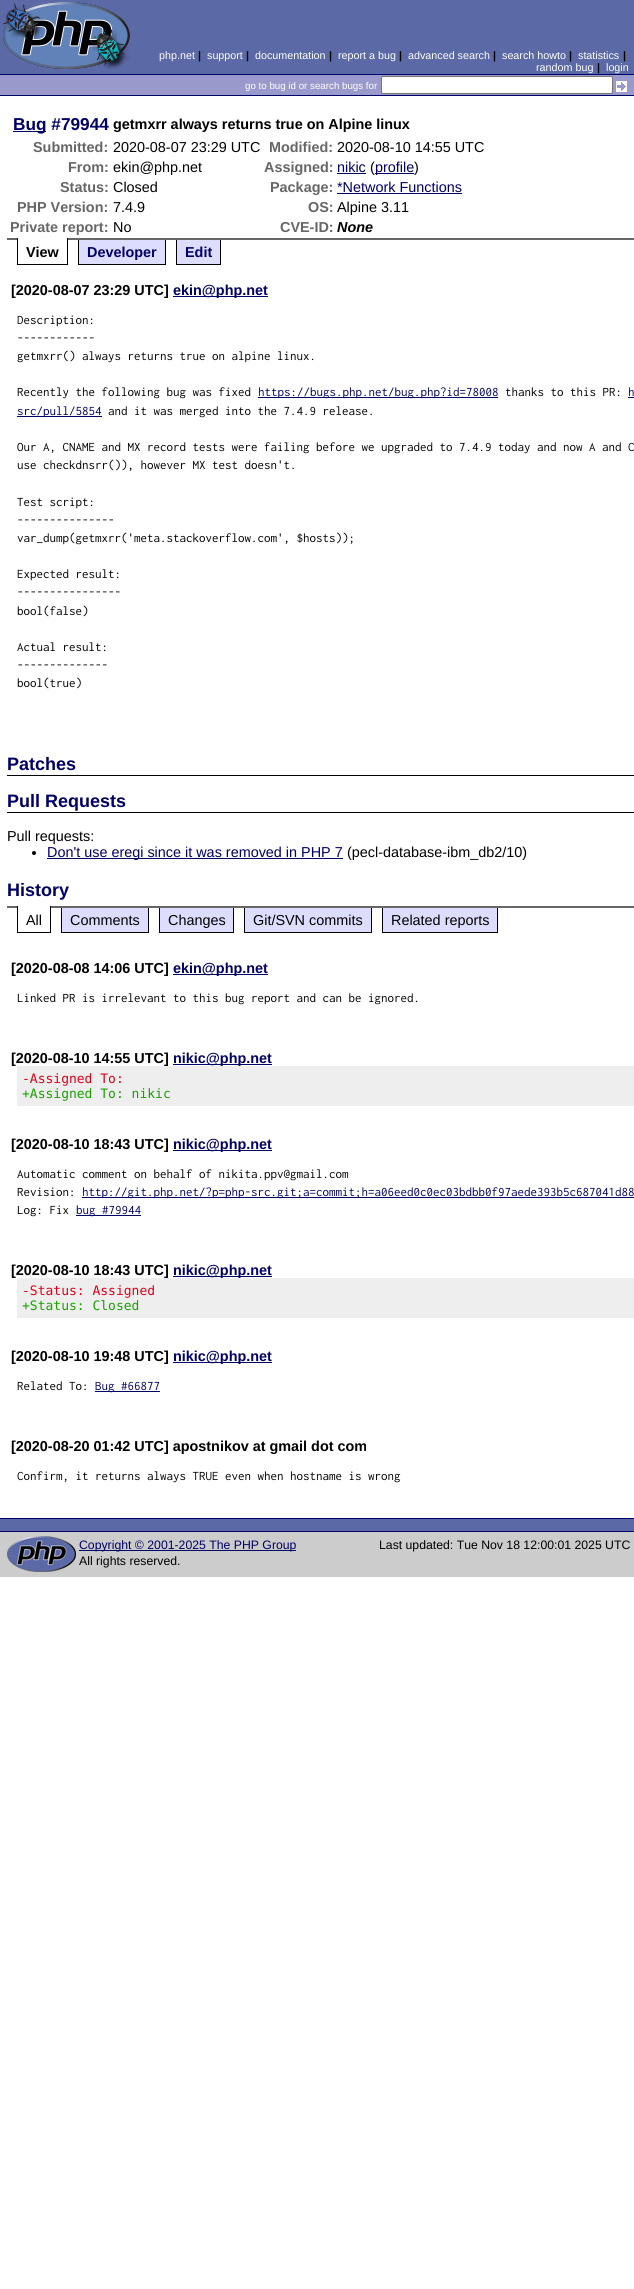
#include <cairo/cairo.h>
#include <math.h>
#include <stddef.h>


static void rounded_rect(cairo_t *cr, double x, double y, double w, double h, double r) {
  cairo_new_sub_path(cr);
  cairo_arc(cr, x + w - r, y + h - r, r, 0, M_PI / 2);
  cairo_arc(cr, x + r, y + h - r, r, M_PI / 2, M_PI);
  cairo_arc(cr, x + r, y + r, r, M_PI, 1.5 * M_PI);
  cairo_arc(cr, x + w - r, y + r, r, 1.5 * M_PI, 2 * M_PI);
  cairo_close_path(cr);
}

static void draw_image(cairo_t *cr, const char *path, double x, double y, double w, double h) {
  cairo_surface_t *image = cairo_image_surface_create_from_png(path);
  cairo_save(cr);
  cairo_set_source_surface(cr, image, x, y);
  cairo_rectangle(cr, x, y, w, h);
  cairo_fill(cr);
  cairo_restore(cr);
  cairo_surface_destroy(image);
}

static void draw(cairo_t *cr) {
  cairo_set_source_rgb(cr, 1, 1, 1);
  cairo_paint(cr);
  cairo_set_source_rgb(cr, 91 / 255.0, 105 / 255.0, 166 / 255.0);
  cairo_rectangle(cr, 0, 0, 634, 74);
  cairo_fill(cr);
  draw_image(cr, "images/1.png", 3, 2, 127, 67);
  cairo_set_source_rgb(cr, 153 / 255.0, 153 / 255.0, 204 / 255.0);
  cairo_rectangle(cr, 0, 75, 634, 20);
  cairo_fill(cr);
  cairo_set_source_rgb(cr, 0, 0, 102 / 255.0);
  cairo_rectangle(cr, 0, 74, 634, 1);
  cairo_fill(cr);
  cairo_rectangle(cr, 0, 95, 634, 1);
  cairo_fill(cr);
  cairo_set_source_rgb(cr, 1, 1, 1);
  rounded_rect(cr, 381.5, 76.5, 231, 17, 1.5);
  cairo_fill_preserve(cr);
  cairo_set_source_rgb(cr, 118 / 255.0, 118 / 255.0, 118 / 255.0);
  cairo_set_line_width(cr, 1);
  cairo_stroke(cr);
  draw_image(cr, "images/2.png", 616, 81, 11, 11);
  cairo_set_source_rgb(cr, 102 / 255.0, 102 / 255.0, 102 / 255.0);
  cairo_rectangle(cr, 7, 238, 627, 2);
  cairo_fill(cr);
  cairo_set_source_rgb(cr, 0, 0, 102 / 255.0);
  cairo_rectangle(cr, 13, 131, 33, 1);
  cairo_fill(cr);
  cairo_rectangle(cr, 337, 173, 29, 1);
  cairo_fill(cr);
  cairo_rectangle(cr, 375, 173, 39, 1);
  cairo_fill(cr);
  cairo_rectangle(cr, 337, 193, 125, 1);
  cairo_fill(cr);
  cairo_set_source_rgb(cr, 1, 1, 1);
  cairo_rectangle(cr, 18, 238, 49, 2);
  cairo_fill(cr);
  cairo_set_source_rgb(cr, 0, 0, 0);
  cairo_rectangle(cr, 67, 238, 1, 27);
  cairo_fill(cr);
  cairo_rectangle(cr, 17, 264, 51, 1);
  cairo_fill(cr);
  cairo_rectangle(cr, 17, 238, 1, 27);
  cairo_fill(cr);
  cairo_set_source_rgb(cr, 221 / 255.0, 221 / 255.0, 1);
  cairo_rectangle(cr, 79, 240, 86, 24);
  cairo_fill(cr);
  cairo_set_source_rgb(cr, 0, 0, 0);
  cairo_rectangle(cr, 165, 240, 1, 25);
  cairo_fill(cr);
  cairo_rectangle(cr, 78, 264, 88, 1);
  cairo_fill(cr);
  cairo_rectangle(cr, 78, 240, 1, 25);
  cairo_fill(cr);
  cairo_set_source_rgb(cr, 221 / 255.0, 221 / 255.0, 1);
  cairo_rectangle(cr, 177, 240, 43, 24);
  cairo_fill(cr);
  cairo_set_source_rgb(cr, 0, 0, 0);
  cairo_rectangle(cr, 220, 240, 1, 25);
  cairo_fill(cr);
  cairo_rectangle(cr, 176, 264, 45, 1);
  cairo_fill(cr);
  cairo_rectangle(cr, 176, 240, 1, 25);
  cairo_fill(cr);
  cairo_set_source_rgb(cr, 0, 0, 102 / 255.0);
  cairo_rectangle(cr, 173, 296, 95, 1);
  cairo_fill(cr);
  cairo_rectangle(cr, 258, 397, 240, 1);
  cairo_fill(cr);
  cairo_rectangle(cr, 628, 397, 6, 1);
  cairo_fill(cr);
  cairo_rectangle(cr, 17, 416, 85, 1);
  cairo_fill(cr);
  cairo_set_source_rgb(cr, 0, 0, 0);
  cairo_rectangle(cr, 7, 775, 627, 1);
  cairo_fill(cr);
  cairo_rectangle(cr, 7, 812, 627, 1);
  cairo_fill(cr);
  cairo_arc(cr, 34, 853, 2, 0, 2 * M_PI);
  cairo_fill(cr);
  cairo_set_source_rgb(cr, 0, 0, 102 / 255.0);
  cairo_rectangle(cr, 47, 858, 296, 1);
  cairo_fill(cr);
  cairo_set_source_rgb(cr, 102 / 255.0, 102 / 255.0, 102 / 255.0);
  cairo_rectangle(cr, 7, 906, 627, 2);
  cairo_fill(cr);
  cairo_set_source_rgb(cr, 1, 1, 1);
  cairo_rectangle(cr, 18, 906, 32, 2);
  cairo_fill(cr);
  cairo_set_source_rgb(cr, 0, 0, 0);
  cairo_rectangle(cr, 50, 906, 1, 27);
  cairo_fill(cr);
  cairo_rectangle(cr, 17, 932, 34, 1);
  cairo_fill(cr);
  cairo_rectangle(cr, 17, 906, 1, 27);
  cairo_fill(cr);
  cairo_set_source_rgb(cr, 221 / 255.0, 221 / 255.0, 1);
  cairo_rectangle(cr, 62, 908, 86, 24);
  cairo_fill(cr);
  cairo_set_source_rgb(cr, 0, 0, 0);
  cairo_rectangle(cr, 148, 908, 1, 25);
  cairo_fill(cr);
  cairo_rectangle(cr, 61, 932, 88, 1);
  cairo_fill(cr);
  cairo_rectangle(cr, 61, 908, 1, 25);
  cairo_fill(cr);
  cairo_set_source_rgb(cr, 221 / 255.0, 221 / 255.0, 1);
  cairo_rectangle(cr, 160, 908, 73, 24);
  cairo_fill(cr);
  cairo_set_source_rgb(cr, 0, 0, 0);
  cairo_rectangle(cr, 233, 908, 1, 25);
  cairo_fill(cr);
  cairo_rectangle(cr, 159, 932, 75, 1);
  cairo_fill(cr);
  cairo_rectangle(cr, 159, 908, 1, 25);
  cairo_fill(cr);
  cairo_set_source_rgb(cr, 221 / 255.0, 221 / 255.0, 1);
  cairo_rectangle(cr, 245, 908, 126, 24);
  cairo_fill(cr);
  cairo_set_source_rgb(cr, 0, 0, 0);
  cairo_rectangle(cr, 371, 908, 1, 25);
  cairo_fill(cr);
  cairo_rectangle(cr, 244, 932, 128, 1);
  cairo_fill(cr);
  cairo_rectangle(cr, 244, 908, 1, 25);
  cairo_fill(cr);
  cairo_set_source_rgb(cr, 221 / 255.0, 221 / 255.0, 1);
  cairo_rectangle(cr, 383, 908, 114, 24);
  cairo_fill(cr);
  cairo_set_source_rgb(cr, 0, 0, 0);
  cairo_rectangle(cr, 497, 908, 1, 25);
  cairo_fill(cr);
  cairo_rectangle(cr, 382, 932, 116, 1);
  cairo_fill(cr);
  cairo_rectangle(cr, 382, 908, 1, 25);
  cairo_fill(cr);
  cairo_set_source_rgb(cr, 0, 0, 102 / 255.0);
  cairo_rectangle(cr, 173, 974, 95, 1);
  cairo_fill(cr);
  cairo_rectangle(cr, 173, 1064, 99, 1);
  cairo_fill(cr);
  cairo_set_source_rgb(cr, 238 / 255.0, 238 / 255.0, 238 / 255.0);
  cairo_rectangle(cr, 17, 1066, 617, 40);
  cairo_fill(cr);
  cairo_set_source_rgb(cr, 0, 0, 102 / 255.0);
  cairo_rectangle(cr, 173, 1150, 99, 1);
  cairo_fill(cr);
  cairo_rectangle(cr, 82, 1197, 552, 1);
  cairo_fill(cr);
  cairo_rectangle(cr, 76, 1215, 65, 1);
  cairo_fill(cr);
  cairo_rectangle(cr, 173, 1276, 99, 1);
  cairo_fill(cr);
  cairo_set_source_rgb(cr, 238 / 255.0, 238 / 255.0, 238 / 255.0);
  cairo_rectangle(cr, 17, 1278, 617, 40);
  cairo_fill(cr);
  cairo_set_source_rgb(cr, 0, 0, 102 / 255.0);
  cairo_rectangle(cr, 173, 1362, 99, 1);
  cairo_fill(cr);
  cairo_rectangle(cr, 95, 1391, 65, 1);
  cairo_fill(cr);
  cairo_set_source_rgb(cr, 91 / 255.0, 105 / 255.0, 166 / 255.0);
  cairo_rectangle(cr, 0, 1519, 634, 12);
  cairo_fill(cr);
  cairo_set_source_rgb(cr, 0, 0, 102 / 255.0);
  cairo_rectangle(cr, 0, 1518, 634, 1);
  cairo_fill(cr);
  cairo_rectangle(cr, 0, 1531, 634, 1);
  cairo_fill(cr);
  cairo_set_source_rgb(cr, 204 / 255.0, 204 / 255.0, 204 / 255.0);
  cairo_rectangle(cr, 0, 1532, 634, 45);
  cairo_fill(cr);
  draw_image(cr, "images/3.png", 7, 1536, 69, 36);
  cairo_set_source_rgb(cr, 0, 0, 102 / 255.0);
  cairo_rectangle(cr, 79, 1550, 217, 1);
  cairo_fill(cr);
  cairo_select_font_face(cr, "Liberation Sans", CAIRO_FONT_SLANT_NORMAL, CAIRO_FONT_WEIGHT_NORMAL);
  cairo_set_font_size(cr, 10.75);
  cairo_set_source_rgb(cr, 1, 1, 1);
  cairo_move_to(cr, 159, 59);
  cairo_show_text(cr, "php.net");
  cairo_select_font_face(cr, "Liberation Sans", CAIRO_FONT_SLANT_NORMAL, CAIRO_FONT_WEIGHT_BOLD);
  cairo_set_source_rgb(cr, 0, 0, 0);
  cairo_move_to(cr, 198, 59);
  cairo_show_text(cr, "|");
  cairo_select_font_face(cr, "Liberation Sans", CAIRO_FONT_SLANT_NORMAL, CAIRO_FONT_WEIGHT_NORMAL);
  cairo_set_source_rgb(cr, 1, 1, 1);
  cairo_move_to(cr, 207, 59);
  cairo_show_text(cr, "support");
  cairo_select_font_face(cr, "Liberation Sans", CAIRO_FONT_SLANT_NORMAL, CAIRO_FONT_WEIGHT_BOLD);
  cairo_set_source_rgb(cr, 0, 0, 0);
  cairo_move_to(cr, 246, 59);
  cairo_show_text(cr, "|");
  cairo_select_font_face(cr, "Liberation Sans", CAIRO_FONT_SLANT_NORMAL, CAIRO_FONT_WEIGHT_NORMAL);
  cairo_set_source_rgb(cr, 1, 1, 1);
  cairo_move_to(cr, 255, 59);
  cairo_show_text(cr, "documentation");
  cairo_select_font_face(cr, "Liberation Sans", CAIRO_FONT_SLANT_NORMAL, CAIRO_FONT_WEIGHT_BOLD);
  cairo_set_source_rgb(cr, 0, 0, 0);
  cairo_move_to(cr, 329, 59);
  cairo_show_text(cr, "|");
  cairo_select_font_face(cr, "Liberation Sans", CAIRO_FONT_SLANT_NORMAL, CAIRO_FONT_WEIGHT_NORMAL);
  cairo_set_source_rgb(cr, 1, 1, 1);
  cairo_move_to(cr, 338, 59);
  cairo_show_text(cr, "report a bug");
  cairo_select_font_face(cr, "Liberation Sans", CAIRO_FONT_SLANT_NORMAL, CAIRO_FONT_WEIGHT_BOLD);
  cairo_set_source_rgb(cr, 0, 0, 0);
  cairo_move_to(cr, 399, 59);
  cairo_show_text(cr, "|");
  cairo_select_font_face(cr, "Liberation Sans", CAIRO_FONT_SLANT_NORMAL, CAIRO_FONT_WEIGHT_NORMAL);
  cairo_set_source_rgb(cr, 1, 1, 1);
  cairo_move_to(cr, 408, 59);
  cairo_show_text(cr, "advanced search");
  cairo_select_font_face(cr, "Liberation Sans", CAIRO_FONT_SLANT_NORMAL, CAIRO_FONT_WEIGHT_BOLD);
  cairo_set_source_rgb(cr, 0, 0, 0);
  cairo_move_to(cr, 493, 59);
  cairo_show_text(cr, "|");
  cairo_select_font_face(cr, "Liberation Sans", CAIRO_FONT_SLANT_NORMAL, CAIRO_FONT_WEIGHT_NORMAL);
  cairo_set_source_rgb(cr, 1, 1, 1);
  cairo_move_to(cr, 502, 59);
  cairo_show_text(cr, "search howto");
  cairo_select_font_face(cr, "Liberation Sans", CAIRO_FONT_SLANT_NORMAL, CAIRO_FONT_WEIGHT_BOLD);
  cairo_set_source_rgb(cr, 0, 0, 0);
  cairo_move_to(cr, 569, 59);
  cairo_show_text(cr, "|");
  cairo_select_font_face(cr, "Liberation Sans", CAIRO_FONT_SLANT_NORMAL, CAIRO_FONT_WEIGHT_NORMAL);
  cairo_set_source_rgb(cr, 1, 1, 1);
  cairo_move_to(cr, 578, 59);
  cairo_show_text(cr, "statistics");
  cairo_select_font_face(cr, "Liberation Sans", CAIRO_FONT_SLANT_NORMAL, CAIRO_FONT_WEIGHT_BOLD);
  cairo_set_source_rgb(cr, 0, 0, 0);
  cairo_move_to(cr, 623, 59);
  cairo_show_text(cr, "|");
  cairo_select_font_face(cr, "Liberation Sans", CAIRO_FONT_SLANT_NORMAL, CAIRO_FONT_WEIGHT_NORMAL);
  cairo_set_source_rgb(cr, 1, 1, 1);
  cairo_move_to(cr, 536, 71);
  cairo_show_text(cr, "random bug");
  cairo_select_font_face(cr, "Liberation Sans", CAIRO_FONT_SLANT_NORMAL, CAIRO_FONT_WEIGHT_BOLD);
  cairo_set_source_rgb(cr, 0, 0, 0);
  cairo_move_to(cr, 597, 71);
  cairo_show_text(cr, "|");
  cairo_select_font_face(cr, "Liberation Sans", CAIRO_FONT_SLANT_NORMAL, CAIRO_FONT_WEIGHT_NORMAL);
  cairo_set_source_rgb(cr, 1, 1, 1);
  cairo_move_to(cr, 606, 71);
  cairo_show_text(cr, "login");
  cairo_set_font_size(cr, 9.75);
  cairo_move_to(cr, 245, 89);
  cairo_show_text(cr, "go to bug id or search bugs for");
  cairo_select_font_face(cr, "Liberation Sans", CAIRO_FONT_SLANT_NORMAL, CAIRO_FONT_WEIGHT_BOLD);
  cairo_set_font_size(cr, 17.25);
  cairo_set_source_rgb(cr, 0, 0, 102 / 255.0);
  cairo_move_to(cr, 13, 130);
  cairo_show_text(cr, "Bug #79944");
  cairo_set_font_size(cr, 14.4);
  cairo_set_source_rgb(cr, 0, 0, 0);
  cairo_move_to(cr, 113, 129);
  cairo_show_text(cr, "getmxrr always returns true on Alpine linux");
  cairo_set_source_rgb(cr, 102 / 255.0, 102 / 255.0, 102 / 255.0);
  cairo_move_to(cr, 33, 152);
  cairo_show_text(cr, "Submitted:");
  cairo_select_font_face(cr, "Liberation Sans", CAIRO_FONT_SLANT_NORMAL, CAIRO_FONT_WEIGHT_NORMAL);
  cairo_set_source_rgb(cr, 0, 0, 0);
  cairo_move_to(cr, 113, 152);
  cairo_show_text(cr, "2020-08-07 23:29 UTC");
  cairo_select_font_face(cr, "Liberation Sans", CAIRO_FONT_SLANT_NORMAL, CAIRO_FONT_WEIGHT_BOLD);
  cairo_set_source_rgb(cr, 102 / 255.0, 102 / 255.0, 102 / 255.0);
  cairo_move_to(cr, 269, 152);
  cairo_show_text(cr, "Modified:");
  cairo_select_font_face(cr, "Liberation Sans", CAIRO_FONT_SLANT_NORMAL, CAIRO_FONT_WEIGHT_NORMAL);
  cairo_set_source_rgb(cr, 0, 0, 0);
  cairo_move_to(cr, 337, 152);
  cairo_show_text(cr, "2020-08-10 14:55 UTC");
  cairo_select_font_face(cr, "Liberation Sans", CAIRO_FONT_SLANT_NORMAL, CAIRO_FONT_WEIGHT_BOLD);
  cairo_set_source_rgb(cr, 102 / 255.0, 102 / 255.0, 102 / 255.0);
  cairo_move_to(cr, 68, 172);
  cairo_show_text(cr, "From:");
  cairo_select_font_face(cr, "Liberation Sans", CAIRO_FONT_SLANT_NORMAL, CAIRO_FONT_WEIGHT_NORMAL);
  cairo_set_source_rgb(cr, 0, 0, 0);
  cairo_move_to(cr, 113, 172);
  cairo_show_text(cr, "ekin@php.net");
  cairo_select_font_face(cr, "Liberation Sans", CAIRO_FONT_SLANT_NORMAL, CAIRO_FONT_WEIGHT_BOLD);
  cairo_set_source_rgb(cr, 102 / 255.0, 102 / 255.0, 102 / 255.0);
  cairo_move_to(cr, 264, 172);
  cairo_show_text(cr, "Assigned:");
  cairo_select_font_face(cr, "Liberation Sans", CAIRO_FONT_SLANT_NORMAL, CAIRO_FONT_WEIGHT_NORMAL);
  cairo_set_source_rgb(cr, 0, 0, 102 / 255.0);
  cairo_move_to(cr, 337, 172);
  cairo_show_text(cr, "nikic");
  cairo_set_source_rgb(cr, 0, 0, 0);
  cairo_move_to(cr, 370, 172);
  cairo_show_text(cr, "(");
  cairo_set_source_rgb(cr, 0, 0, 102 / 255.0);
  cairo_move_to(cr, 375, 172);
  cairo_show_text(cr, "profile");
  cairo_set_source_rgb(cr, 0, 0, 0);
  cairo_move_to(cr, 414, 172);
  cairo_show_text(cr, ")");
  cairo_select_font_face(cr, "Liberation Sans", CAIRO_FONT_SLANT_NORMAL, CAIRO_FONT_WEIGHT_BOLD);
  cairo_set_source_rgb(cr, 102 / 255.0, 102 / 255.0, 102 / 255.0);
  cairo_move_to(cr, 60, 192);
  cairo_show_text(cr, "Status:");
  cairo_select_font_face(cr, "Liberation Sans", CAIRO_FONT_SLANT_NORMAL, CAIRO_FONT_WEIGHT_NORMAL);
  cairo_set_source_rgb(cr, 0, 0, 0);
  cairo_move_to(cr, 113, 192);
  cairo_show_text(cr, "Closed");
  cairo_select_font_face(cr, "Liberation Sans", CAIRO_FONT_SLANT_NORMAL, CAIRO_FONT_WEIGHT_BOLD);
  cairo_set_source_rgb(cr, 102 / 255.0, 102 / 255.0, 102 / 255.0);
  cairo_move_to(cr, 270, 192);
  cairo_show_text(cr, "Package:");
  cairo_select_font_face(cr, "Liberation Sans", CAIRO_FONT_SLANT_NORMAL, CAIRO_FONT_WEIGHT_NORMAL);
  cairo_set_source_rgb(cr, 0, 0, 102 / 255.0);
  cairo_move_to(cr, 337, 192);
  cairo_show_text(cr, "*Network Functions");
  cairo_select_font_face(cr, "Liberation Sans", CAIRO_FONT_SLANT_NORMAL, CAIRO_FONT_WEIGHT_BOLD);
  cairo_set_source_rgb(cr, 102 / 255.0, 102 / 255.0, 102 / 255.0);
  cairo_move_to(cr, 17, 212);
  cairo_show_text(cr, "PHP Version:");
  cairo_select_font_face(cr, "Liberation Sans", CAIRO_FONT_SLANT_NORMAL, CAIRO_FONT_WEIGHT_NORMAL);
  cairo_set_source_rgb(cr, 0, 0, 0);
  cairo_move_to(cr, 113, 212);
  cairo_show_text(cr, "7.4.9");
  cairo_select_font_face(cr, "Liberation Sans", CAIRO_FONT_SLANT_NORMAL, CAIRO_FONT_WEIGHT_BOLD);
  cairo_set_source_rgb(cr, 102 / 255.0, 102 / 255.0, 102 / 255.0);
  cairo_move_to(cr, 308, 212);
  cairo_show_text(cr, "OS:");
  cairo_select_font_face(cr, "Liberation Sans", CAIRO_FONT_SLANT_NORMAL, CAIRO_FONT_WEIGHT_NORMAL);
  cairo_set_source_rgb(cr, 0, 0, 0);
  cairo_move_to(cr, 337, 212);
  cairo_show_text(cr, "Alpine 3.11");
  cairo_select_font_face(cr, "Liberation Sans", CAIRO_FONT_SLANT_NORMAL, CAIRO_FONT_WEIGHT_BOLD);
  cairo_set_source_rgb(cr, 102 / 255.0, 102 / 255.0, 102 / 255.0);
  cairo_move_to(cr, 10, 232);
  cairo_show_text(cr, "Private report:");
  cairo_select_font_face(cr, "Liberation Sans", CAIRO_FONT_SLANT_NORMAL, CAIRO_FONT_WEIGHT_NORMAL);
  cairo_set_source_rgb(cr, 0, 0, 0);
  cairo_move_to(cr, 113, 232);
  cairo_show_text(cr, "No");
  cairo_select_font_face(cr, "Liberation Sans", CAIRO_FONT_SLANT_NORMAL, CAIRO_FONT_WEIGHT_BOLD);
  cairo_set_source_rgb(cr, 102 / 255.0, 102 / 255.0, 102 / 255.0);
  cairo_move_to(cr, 280, 232);
  cairo_show_text(cr, "CVE-ID:");
  cairo_select_font_face(cr, "Liberation Sans", CAIRO_FONT_SLANT_ITALIC, CAIRO_FONT_WEIGHT_BOLD);
  cairo_set_source_rgb(cr, 0, 0, 0);
  cairo_move_to(cr, 337, 232);
  cairo_show_text(cr, "None");
  cairo_select_font_face(cr, "Liberation Sans", CAIRO_FONT_SLANT_NORMAL, CAIRO_FONT_WEIGHT_BOLD);
  cairo_move_to(cr, 26, 257);
  cairo_show_text(cr, "View");
  cairo_set_source_rgb(cr, 0, 0, 102 / 255.0);
  cairo_move_to(cr, 87, 257);
  cairo_show_text(cr, "Developer");
  cairo_move_to(cr, 185, 257);
  cairo_show_text(cr, "Edit");
  cairo_set_source_rgb(cr, 0, 0, 0);
  cairo_move_to(cr, 11, 295);
  cairo_show_text(cr, "[2020-08-07 23:29 UTC]");
  cairo_set_source_rgb(cr, 0, 0, 102 / 255.0);
  cairo_move_to(cr, 173, 295);
  cairo_show_text(cr, "ekin@php.net");
  cairo_select_font_face(cr, "Inconsolata", CAIRO_FONT_SLANT_NORMAL, CAIRO_FONT_WEIGHT_NORMAL);
  cairo_set_font_size(cr, 13);
  cairo_set_source_rgb(cr, 0, 0, 0);
  cairo_move_to(cr, 17, 324);
  cairo_show_text(cr, "Description:");
  cairo_move_to(cr, 17, 342);
  cairo_show_text(cr, "------------");
  cairo_move_to(cr, 17, 360);
  cairo_show_text(cr, "getmxrr() always returns true on alpine linux.");
  cairo_move_to(cr, 17, 396);
  cairo_show_text(cr, "Recently the following bug was fixed");
  cairo_set_source_rgb(cr, 0, 0, 102 / 255.0);
  cairo_move_to(cr, 258, 396);
  cairo_show_text(cr, "https://bugs.php.net/bug.php?id=78008");
  cairo_set_source_rgb(cr, 0, 0, 0);
  cairo_move_to(cr, 505, 396);
  cairo_show_text(cr, "thanks to this PR:");
  cairo_set_source_rgb(cr, 0, 0, 102 / 255.0);
  cairo_move_to(cr, 628, 396);
  cairo_show_text(cr, "h");
  cairo_move_to(cr, 17, 415);
  cairo_show_text(cr, "src/pull/5854");
  cairo_set_source_rgb(cr, 0, 0, 0);
  cairo_move_to(cr, 108, 415);
  cairo_show_text(cr, "and it was merged into the 7.4.9 release.");
  cairo_move_to(cr, 17, 451);
  cairo_show_text(cr, "Our A, CNAME and MX record tests were failing before we upgraded to 7.4.9 today and now A and C");
  cairo_move_to(cr, 17, 469);
  cairo_show_text(cr, "use checkdnsrr()), however MX test doesn't.");
  cairo_move_to(cr, 17, 506);
  cairo_show_text(cr, "Test script:");
  cairo_move_to(cr, 17, 524);
  cairo_show_text(cr, "---------------");
  cairo_move_to(cr, 17, 542);
  cairo_show_text(cr, "var_dump(getmxrr('meta.stackoverflow.com', $hosts));");
  cairo_move_to(cr, 17, 578);
  cairo_show_text(cr, "Expected result:");
  cairo_move_to(cr, 17, 596);
  cairo_show_text(cr, "----------------");
  cairo_move_to(cr, 17, 615);
  cairo_show_text(cr, "bool(false)");
  cairo_move_to(cr, 17, 651);
  cairo_show_text(cr, "Actual result:");
  cairo_move_to(cr, 17, 669);
  cairo_show_text(cr, "--------------");
  cairo_move_to(cr, 17, 687);
  cairo_show_text(cr, "bool(true)");
  cairo_select_font_face(cr, "Liberation Sans", CAIRO_FONT_SLANT_NORMAL, CAIRO_FONT_WEIGHT_BOLD);
  cairo_set_font_size(cr, 18);
  cairo_set_source_rgb(cr, 0, 0, 102 / 255.0);
  cairo_move_to(cr, 7, 770);
  cairo_show_text(cr, "Patches");
  cairo_move_to(cr, 7, 807);
  cairo_show_text(cr, "Pull Requests");
  cairo_select_font_face(cr, "Liberation Sans", CAIRO_FONT_SLANT_NORMAL, CAIRO_FONT_WEIGHT_NORMAL);
  cairo_set_font_size(cr, 14.4);
  cairo_set_source_rgb(cr, 0, 0, 0);
  cairo_move_to(cr, 7, 841);
  cairo_show_text(cr, "Pull requests:");
  cairo_set_source_rgb(cr, 0, 0, 102 / 255.0);
  cairo_move_to(cr, 47, 857);
  cairo_show_text(cr, "Don't use eregi since it was removed in PHP 7");
  cairo_set_source_rgb(cr, 0, 0, 0);
  cairo_move_to(cr, 347, 857);
  cairo_show_text(cr, "(pecl-database-ibm_db2/10)");
  cairo_select_font_face(cr, "Liberation Sans", CAIRO_FONT_SLANT_NORMAL, CAIRO_FONT_WEIGHT_BOLD);
  cairo_set_font_size(cr, 18);
  cairo_set_source_rgb(cr, 0, 0, 102 / 255.0);
  cairo_move_to(cr, 7, 896);
  cairo_show_text(cr, "History");
  cairo_select_font_face(cr, "Liberation Sans", CAIRO_FONT_SLANT_NORMAL, CAIRO_FONT_WEIGHT_NORMAL);
  cairo_set_font_size(cr, 14.4);
  cairo_set_source_rgb(cr, 0, 0, 0);
  cairo_move_to(cr, 26, 925);
  cairo_show_text(cr, "All");
  cairo_move_to(cr, 70, 925);
  cairo_show_text(cr, "Comments");
  cairo_move_to(cr, 168, 925);
  cairo_show_text(cr, "Changes");
  cairo_move_to(cr, 253, 925);
  cairo_show_text(cr, "Git/SVN commits");
  cairo_move_to(cr, 391, 925);
  cairo_show_text(cr, "Related reports");
  cairo_select_font_face(cr, "Liberation Sans", CAIRO_FONT_SLANT_NORMAL, CAIRO_FONT_WEIGHT_BOLD);
  cairo_move_to(cr, 11, 973);
  cairo_show_text(cr, "[2020-08-08 14:06 UTC]");
  cairo_set_source_rgb(cr, 0, 0, 102 / 255.0);
  cairo_move_to(cr, 173, 973);
  cairo_show_text(cr, "ekin@php.net");
  cairo_select_font_face(cr, "Inconsolata", CAIRO_FONT_SLANT_NORMAL, CAIRO_FONT_WEIGHT_NORMAL);
  cairo_set_font_size(cr, 13);
  cairo_set_source_rgb(cr, 0, 0, 0);
  cairo_move_to(cr, 17, 1002);
  cairo_show_text(cr, "Linked PR is irrelevant to this bug report and can be ignored.");
  cairo_select_font_face(cr, "Liberation Sans", CAIRO_FONT_SLANT_NORMAL, CAIRO_FONT_WEIGHT_BOLD);
  cairo_set_font_size(cr, 14.4);
  cairo_move_to(cr, 11, 1063);
  cairo_show_text(cr, "[2020-08-10 14:55 UTC]");
  cairo_set_source_rgb(cr, 0, 0, 102 / 255.0);
  cairo_move_to(cr, 173, 1063);
  cairo_show_text(cr, "nikic@php.net");
  cairo_select_font_face(cr, "DejaVu Sans Mono", CAIRO_FONT_SLANT_NORMAL, CAIRO_FONT_WEIGHT_NORMAL);
  cairo_set_font_size(cr, 13);
  cairo_set_source_rgb(cr, 222 / 255.0, 0, 25 / 255.0);
  cairo_move_to(cr, 22, 1083);
  cairo_show_text(cr, "-Assigned To:");
  cairo_set_source_rgb(cr, 26 / 255.0, 161 / 255.0, 0);
  cairo_move_to(cr, 22, 1098);
  cairo_show_text(cr, "+Assigned To: nikic");
  cairo_select_font_face(cr, "Liberation Sans", CAIRO_FONT_SLANT_NORMAL, CAIRO_FONT_WEIGHT_BOLD);
  cairo_set_font_size(cr, 14.4);
  cairo_set_source_rgb(cr, 0, 0, 0);
  cairo_move_to(cr, 11, 1149);
  cairo_show_text(cr, "[2020-08-10 18:43 UTC]");
  cairo_set_source_rgb(cr, 0, 0, 102 / 255.0);
  cairo_move_to(cr, 173, 1149);
  cairo_show_text(cr, "nikic@php.net");
  cairo_select_font_face(cr, "Inconsolata", CAIRO_FONT_SLANT_NORMAL, CAIRO_FONT_WEIGHT_NORMAL);
  cairo_set_font_size(cr, 13);
  cairo_set_source_rgb(cr, 0, 0, 0);
  cairo_move_to(cr, 17, 1178);
  cairo_show_text(cr, "Automatic comment on behalf of nikita.ppv@gmail.com");
  cairo_move_to(cr, 17, 1196);
  cairo_show_text(cr, "Revision:");
  cairo_set_source_rgb(cr, 0, 0, 102 / 255.0);
  cairo_move_to(cr, 82, 1196);
  cairo_show_text(cr, "http://git.php.net/?p=php-src.git;a=commit;h=a06eed0c0ec03bdbb0f97aede393b5c687041d88");
  cairo_set_source_rgb(cr, 0, 0, 0);
  cairo_move_to(cr, 17, 1214);
  cairo_show_text(cr, "Log: Fix");
  cairo_set_source_rgb(cr, 0, 0, 102 / 255.0);
  cairo_move_to(cr, 76, 1214);
  cairo_show_text(cr, "bug #79944");
  cairo_select_font_face(cr, "Liberation Sans", CAIRO_FONT_SLANT_NORMAL, CAIRO_FONT_WEIGHT_BOLD);
  cairo_set_font_size(cr, 14.4);
  cairo_set_source_rgb(cr, 0, 0, 0);
  cairo_move_to(cr, 11, 1275);
  cairo_show_text(cr, "[2020-08-10 18:43 UTC]");
  cairo_set_source_rgb(cr, 0, 0, 102 / 255.0);
  cairo_move_to(cr, 173, 1275);
  cairo_show_text(cr, "nikic@php.net");
  cairo_select_font_face(cr, "DejaVu Sans Mono", CAIRO_FONT_SLANT_NORMAL, CAIRO_FONT_WEIGHT_NORMAL);
  cairo_set_font_size(cr, 13);
  cairo_set_source_rgb(cr, 222 / 255.0, 0, 25 / 255.0);
  cairo_move_to(cr, 22, 1295);
  cairo_show_text(cr, "-Status: Assigned");
  cairo_set_source_rgb(cr, 26 / 255.0, 161 / 255.0, 0);
  cairo_move_to(cr, 22, 1310);
  cairo_show_text(cr, "+Status: Closed");
  cairo_select_font_face(cr, "Liberation Sans", CAIRO_FONT_SLANT_NORMAL, CAIRO_FONT_WEIGHT_BOLD);
  cairo_set_font_size(cr, 14.4);
  cairo_set_source_rgb(cr, 0, 0, 0);
  cairo_move_to(cr, 11, 1361);
  cairo_show_text(cr, "[2020-08-10 19:48 UTC]");
  cairo_set_source_rgb(cr, 0, 0, 102 / 255.0);
  cairo_move_to(cr, 173, 1361);
  cairo_show_text(cr, "nikic@php.net");
  cairo_select_font_face(cr, "Inconsolata", CAIRO_FONT_SLANT_NORMAL, CAIRO_FONT_WEIGHT_NORMAL);
  cairo_set_font_size(cr, 13);
  cairo_set_source_rgb(cr, 0, 0, 0);
  cairo_move_to(cr, 17, 1390);
  cairo_show_text(cr, "Related To:");
  cairo_set_source_rgb(cr, 0, 0, 102 / 255.0);
  cairo_move_to(cr, 95, 1390);
  cairo_show_text(cr, "Bug #66877");
  cairo_select_font_face(cr, "Liberation Sans", CAIRO_FONT_SLANT_NORMAL, CAIRO_FONT_WEIGHT_BOLD);
  cairo_set_font_size(cr, 14.4);
  cairo_set_source_rgb(cr, 0, 0, 0);
  cairo_move_to(cr, 11, 1451);
  cairo_show_text(cr, "[2020-08-20 01:42 UTC] apostnikov at gmail dot com");
  cairo_select_font_face(cr, "Inconsolata", CAIRO_FONT_SLANT_NORMAL, CAIRO_FONT_WEIGHT_NORMAL);
  cairo_set_font_size(cr, 13);
  cairo_move_to(cr, 17, 1480);
  cairo_show_text(cr, "Confirm, it returns always TRUE even when hostname is wrong");
  cairo_select_font_face(cr, "Liberation Sans", CAIRO_FONT_SLANT_NORMAL, CAIRO_FONT_WEIGHT_NORMAL);
  cairo_set_font_size(cr, 12.25);
  cairo_set_source_rgb(cr, 0, 0, 102 / 255.0);
  cairo_move_to(cr, 79, 1549);
  cairo_show_text(cr, "Copyright © 2001-2025 The PHP Group");
  cairo_set_source_rgb(cr, 0, 0, 0);
  cairo_move_to(cr, 79, 1565);
  cairo_show_text(cr, "All rights reserved.");
  cairo_move_to(cr, 379, 1549);
  cairo_show_text(cr, "Last updated: Tue Nov 18 12:00:01 2025 UTC");
}

int main(void) {
  cairo_surface_t *surface = cairo_image_surface_create(CAIRO_FORMAT_RGB24, 634, 2289);
  cairo_t *cr = cairo_create(surface);
  cairo_font_options_t *options = cairo_font_options_create();
  cairo_font_options_set_hint_metrics(options, CAIRO_HINT_METRICS_OFF);
  cairo_font_options_set_hint_style(options, CAIRO_HINT_STYLE_NONE);
  cairo_set_font_options(cr, options);
  cairo_set_miter_limit(cr, 4);
  draw(cr);
  cairo_surface_write_to_png(surface, "out.png");
  cairo_font_options_destroy(options);
  cairo_destroy(cr);
  cairo_surface_destroy(surface);
  return 0;
}
